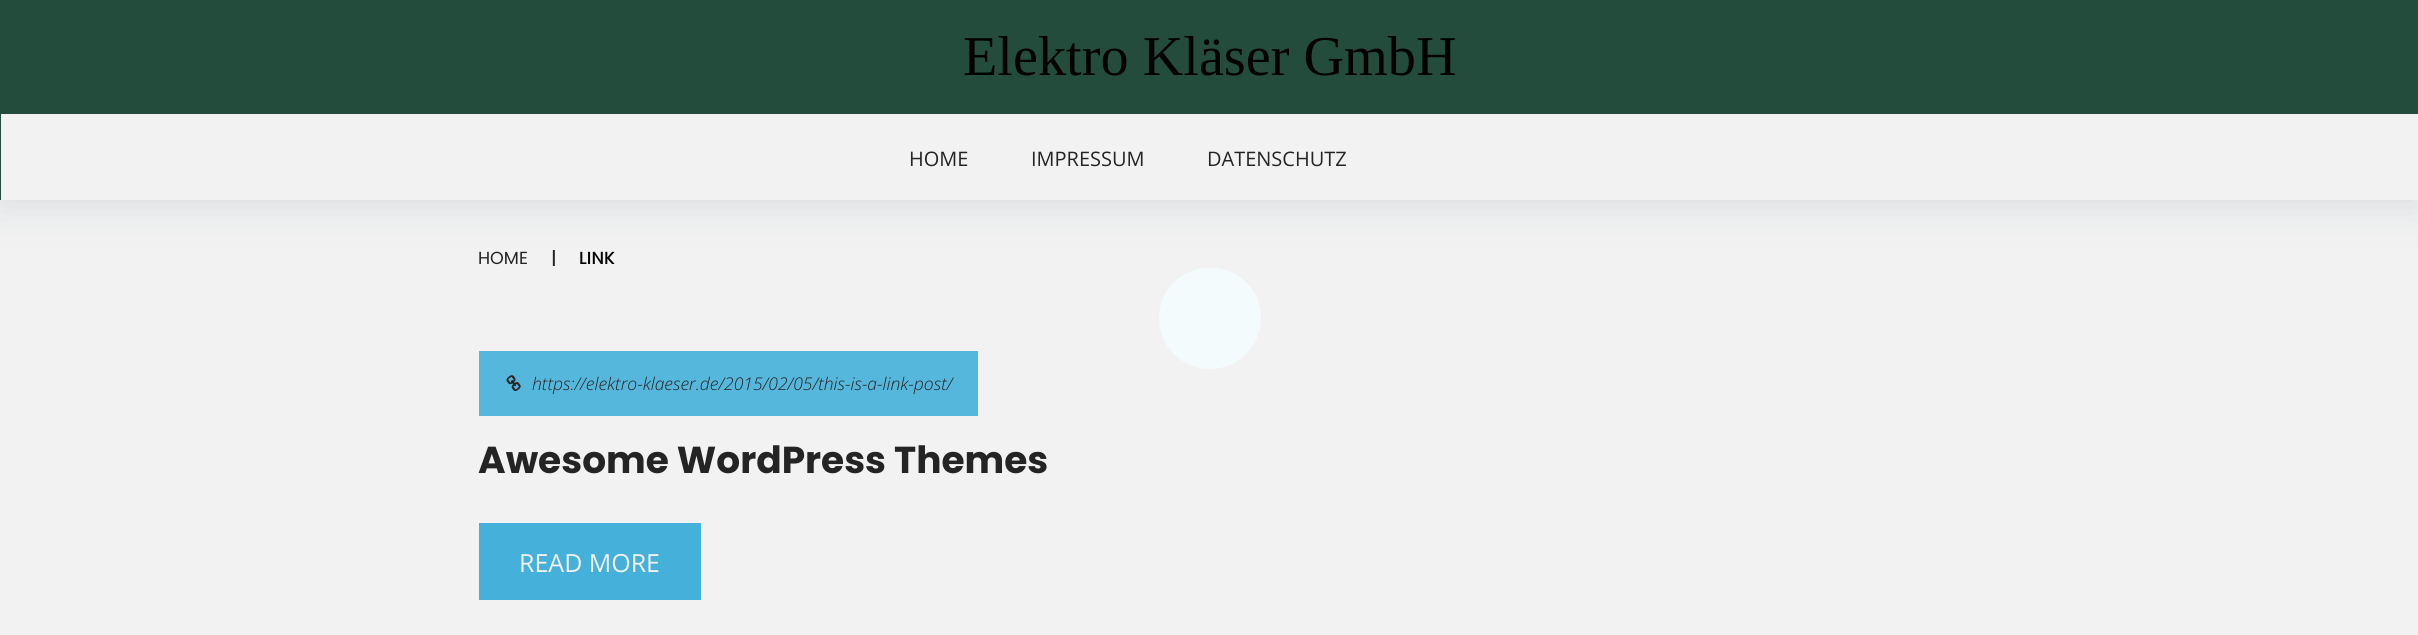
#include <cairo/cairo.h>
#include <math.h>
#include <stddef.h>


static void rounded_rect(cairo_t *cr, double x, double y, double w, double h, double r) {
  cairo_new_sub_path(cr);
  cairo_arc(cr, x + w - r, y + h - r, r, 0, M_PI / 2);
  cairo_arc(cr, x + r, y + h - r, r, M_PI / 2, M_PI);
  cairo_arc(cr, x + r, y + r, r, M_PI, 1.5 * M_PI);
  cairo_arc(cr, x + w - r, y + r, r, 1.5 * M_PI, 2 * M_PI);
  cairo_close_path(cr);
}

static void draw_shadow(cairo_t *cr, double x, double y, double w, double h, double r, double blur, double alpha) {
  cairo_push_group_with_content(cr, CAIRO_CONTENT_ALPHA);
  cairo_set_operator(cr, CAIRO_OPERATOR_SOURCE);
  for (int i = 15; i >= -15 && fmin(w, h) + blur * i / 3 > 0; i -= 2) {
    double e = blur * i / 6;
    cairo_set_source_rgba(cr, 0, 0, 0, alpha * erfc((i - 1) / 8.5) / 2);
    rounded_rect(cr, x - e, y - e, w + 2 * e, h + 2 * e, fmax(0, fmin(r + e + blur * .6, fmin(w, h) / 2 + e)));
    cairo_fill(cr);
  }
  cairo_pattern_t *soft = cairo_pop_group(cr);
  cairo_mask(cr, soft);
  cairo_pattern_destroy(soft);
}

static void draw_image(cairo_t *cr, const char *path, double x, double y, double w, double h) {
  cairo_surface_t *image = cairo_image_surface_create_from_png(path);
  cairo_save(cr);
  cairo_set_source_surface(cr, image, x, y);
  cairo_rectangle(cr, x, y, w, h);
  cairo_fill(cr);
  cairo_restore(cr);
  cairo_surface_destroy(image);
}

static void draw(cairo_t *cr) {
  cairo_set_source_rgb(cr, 242 / 255.0, 242 / 255.0, 242 / 255.0);
  cairo_paint(cr);
  cairo_set_source_rgb(cr, 99 / 255.0, 117 / 255.0, 135 / 255.0);
  draw_shadow(cr, 0, 6, 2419, 200, 0, 20, 0.17);
  cairo_set_source_rgb(cr, 35 / 255.0, 76 / 255.0, 61 / 255.0);
  cairo_rectangle(cr, 0, 0, 2418, 200);
  cairo_fill(cr);
  cairo_set_source_rgb(cr, 242 / 255.0, 242 / 255.0, 242 / 255.0);
  cairo_rectangle(cr, 1, 114, 2417, 86);
  cairo_fill(cr);
  cairo_set_source_rgb(cr, 86 / 255.0, 183 / 255.0, 221 / 255.0);
  cairo_rectangle(cr, 479, 351, 499, 65);
  cairo_fill(cr);
  draw_image(cr, "images/1.png", 506, 375, 15, 17);
  cairo_set_source_rgb(cr, 69 / 255.0, 176 / 255.0, 218 / 255.0);
  cairo_rectangle(cr, 479, 523, 222, 77);
  cairo_fill(cr);
  cairo_set_source_rgb(cr, 244 / 255.0, 251 / 255.0, 253 / 255.0);
  cairo_new_path(cr);
  cairo_move_to(cr, 1246, 282);
  cairo_curve_to(cr, 1266, 302, 1266, 334, 1246, 354);
  cairo_curve_to(cr, 1226, 374, 1194, 374, 1174, 354);
  cairo_curve_to(cr, 1154, 334, 1154, 302, 1174, 282);
  cairo_curve_to(cr, 1194, 263, 1226, 263, 1246, 282);
  cairo_close_path(cr);
  cairo_fill(cr);
  cairo_select_font_face(cr, "Liberation Serif", CAIRO_FONT_SLANT_NORMAL, CAIRO_FONT_WEIGHT_NORMAL);
  cairo_set_font_size(cr, 56.25);
  cairo_set_source_rgb(cr, 2 / 255.0, 2 / 255.0, 2 / 255.0);
  cairo_move_to(cr, 963, 75);
  cairo_show_text(cr, "Elektro Kläser GmbH");
  cairo_select_font_face(cr, "Open Sans", CAIRO_FONT_SLANT_NORMAL, CAIRO_FONT_WEIGHT_NORMAL);
  cairo_set_font_size(cr, 20);
  cairo_set_source_rgb(cr, 36 / 255.0, 36 / 255.0, 36 / 255.0);
  cairo_move_to(cr, 909, 166);
  cairo_show_text(cr, "HOME");
  cairo_move_to(cr, 1031, 166);
  cairo_show_text(cr, "IMPRESSUM");
  cairo_move_to(cr, 1207, 166);
  cairo_show_text(cr, "DATENSCHUTZ");
  cairo_select_font_face(cr, "Poppins", CAIRO_FONT_SLANT_NORMAL, CAIRO_FONT_WEIGHT_NORMAL);
  cairo_set_font_size(cr, 17.5);
  cairo_move_to(cr, 478, 264);
  cairo_show_text(cr, "HOME");
  cairo_select_font_face(cr, "Poppins Medium", CAIRO_FONT_SLANT_NORMAL, CAIRO_FONT_WEIGHT_NORMAL);
  cairo_move_to(cr, 551, 264);
  cairo_show_text(cr, "|");
  cairo_set_source_rgb(cr, 2 / 255.0, 2 / 255.0, 2 / 255.0);
  cairo_move_to(cr, 579, 264);
  cairo_show_text(cr, "LINK");
  cairo_select_font_face(cr, "Open Sans Light", CAIRO_FONT_SLANT_ITALIC, CAIRO_FONT_WEIGHT_NORMAL);
  cairo_set_source_rgb(cr, 36 / 255.0, 36 / 255.0, 36 / 255.0);
  cairo_move_to(cr, 532, 390);
  cairo_show_text(cr, "https://elektro-klaeser.de/2015/02/05/this-is-a-link-post/");
  cairo_select_font_face(cr, "Poppins", CAIRO_FONT_SLANT_NORMAL, CAIRO_FONT_WEIGHT_BOLD);
  cairo_set_font_size(cr, 37.5);
  cairo_move_to(cr, 478, 473);
  cairo_show_text(cr, "Awesome WordPress Themes");
  cairo_select_font_face(cr, "Open Sans", CAIRO_FONT_SLANT_NORMAL, CAIRO_FONT_WEIGHT_NORMAL);
  cairo_set_font_size(cr, 25);
  cairo_set_source_rgb(cr, 242 / 255.0, 242 / 255.0, 242 / 255.0);
  cairo_move_to(cr, 519, 572);
  cairo_show_text(cr, "READ MORE");
}

int main(void) {
  cairo_surface_t *surface = cairo_image_surface_create(CAIRO_FORMAT_RGB24, 2418, 635);
  cairo_t *cr = cairo_create(surface);
  cairo_font_options_t *options = cairo_font_options_create();
  cairo_font_options_set_hint_metrics(options, CAIRO_HINT_METRICS_OFF);
  cairo_font_options_set_hint_style(options, CAIRO_HINT_STYLE_NONE);
  cairo_set_font_options(cr, options);
  cairo_set_miter_limit(cr, 4);
  draw(cr);
  cairo_surface_write_to_png(surface, "out.png");
  cairo_font_options_destroy(options);
  cairo_destroy(cr);
  cairo_surface_destroy(surface);
  return 0;
}
